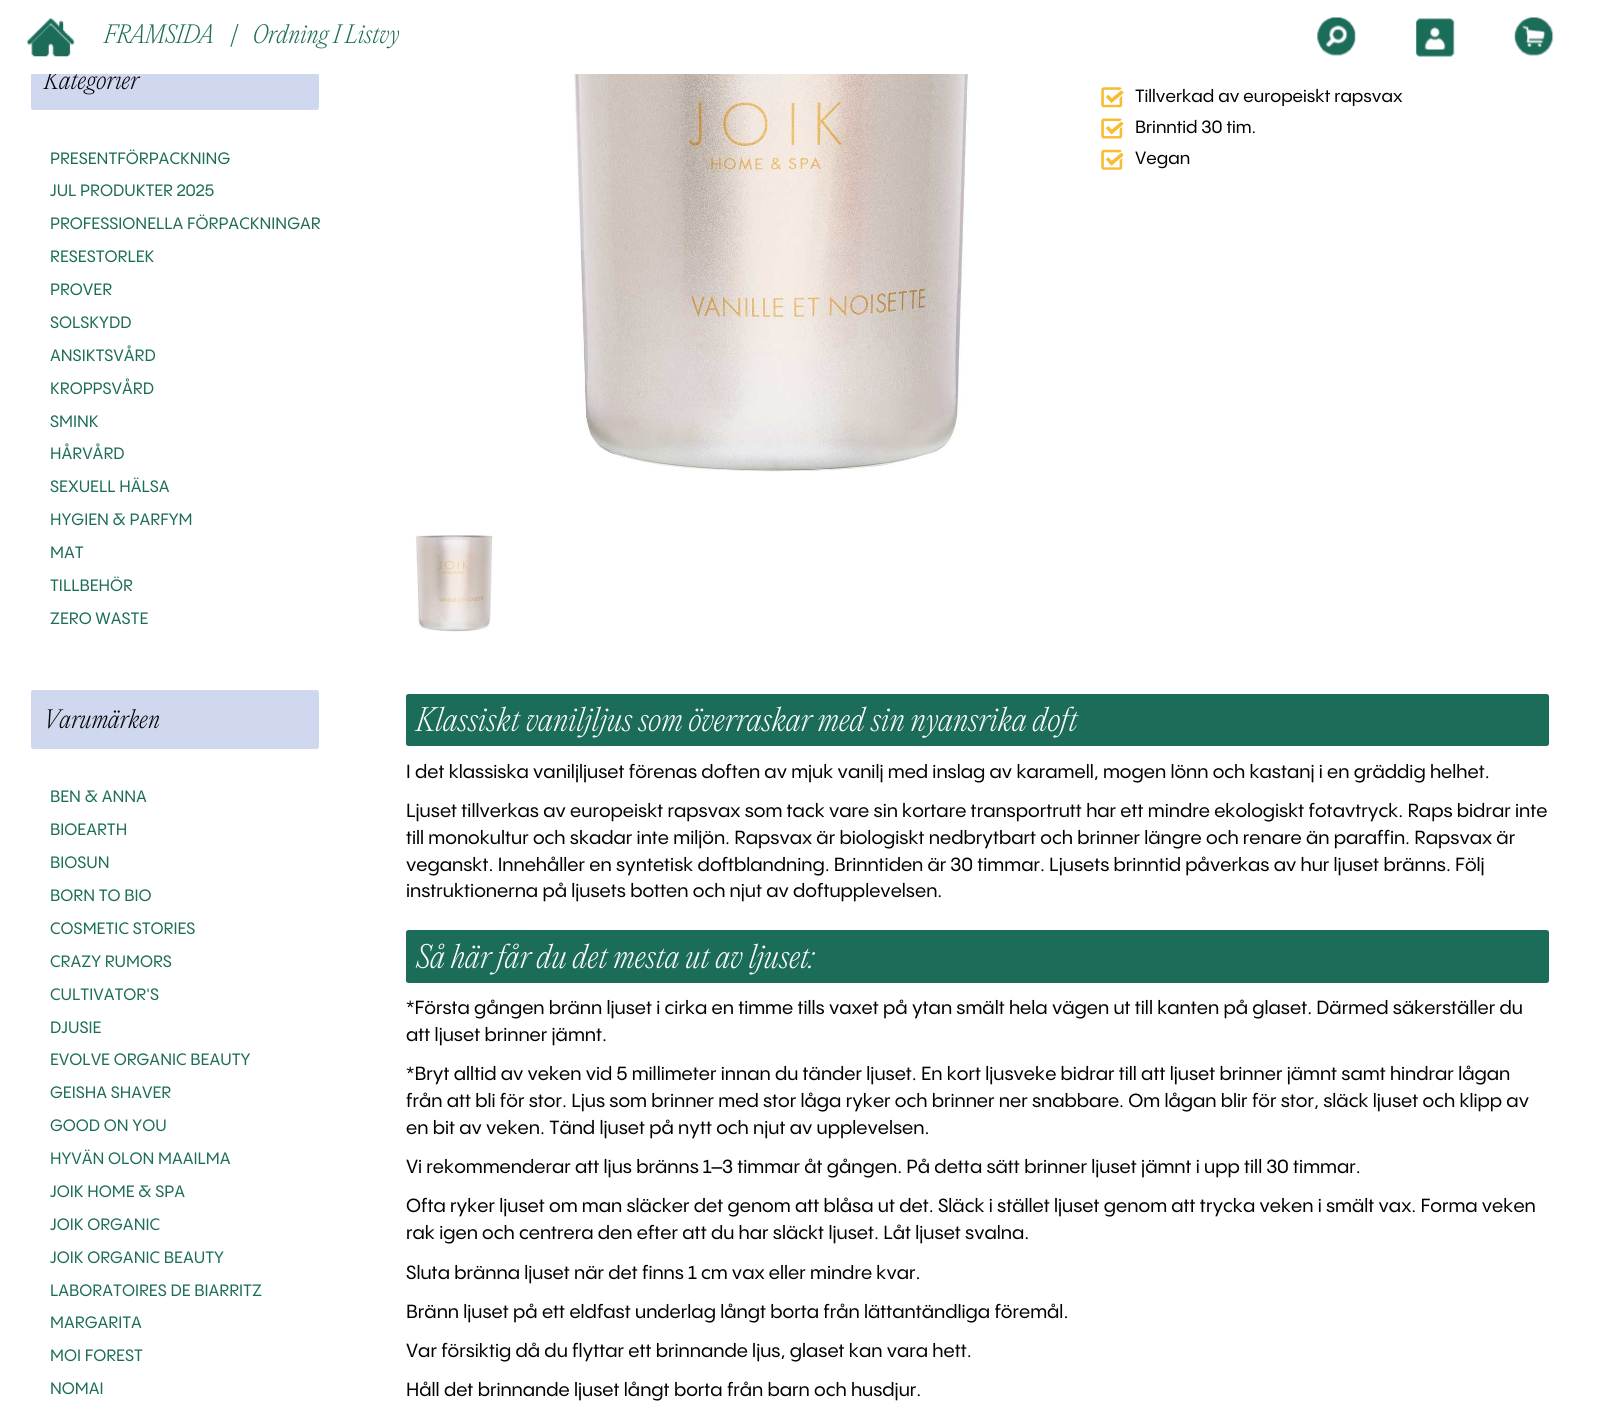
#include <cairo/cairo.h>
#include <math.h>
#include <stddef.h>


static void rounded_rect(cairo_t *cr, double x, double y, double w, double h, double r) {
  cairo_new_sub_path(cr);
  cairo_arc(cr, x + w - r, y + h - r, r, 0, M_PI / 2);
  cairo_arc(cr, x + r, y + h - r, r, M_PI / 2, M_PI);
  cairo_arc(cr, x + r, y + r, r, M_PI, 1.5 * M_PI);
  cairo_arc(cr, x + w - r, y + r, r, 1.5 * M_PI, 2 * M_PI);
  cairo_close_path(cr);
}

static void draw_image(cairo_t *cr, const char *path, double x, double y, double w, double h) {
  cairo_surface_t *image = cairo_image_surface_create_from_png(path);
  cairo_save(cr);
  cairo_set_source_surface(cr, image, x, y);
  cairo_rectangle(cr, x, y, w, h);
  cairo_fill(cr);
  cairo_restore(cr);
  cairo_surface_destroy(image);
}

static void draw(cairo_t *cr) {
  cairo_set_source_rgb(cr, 1, 1, 1);
  cairo_paint(cr);
  draw_image(cr, "images/2.png", 1317, 17, 39, 39);
  draw_image(cr, "images/3.png", 1416, 18, 39, 39);
  draw_image(cr, "images/4.png", 1514, 17, 40, 39);
  cairo_set_source_rgb(cr, 208 / 255.0, 216 / 255.0, 239 / 255.0);
  rounded_rect(cr, 31, 51, 288, 59, 2.5);
  cairo_fill(cr);
  rounded_rect(cr, 31, 690, 288, 59, 2.5);
  cairo_fill(cr);
  draw_image(cr, "images/5.png", 572, 74, 399, 398);
  draw_image(cr, "images/6.png", 415, 535, 78, 97);
  draw_image(cr, "images/7.png", 1101, 87, 23, 21);
  draw_image(cr, "images/8.png", 1101, 118, 23, 21);
  draw_image(cr, "images/9.png", 1101, 149, 23, 21);
  cairo_set_source_rgb(cr, 27 / 255.0, 108 / 255.0, 88 / 255.0);
  rounded_rect(cr, 406, 694, 1143, 52, 2.5);
  cairo_fill(cr);
  rounded_rect(cr, 406, 930, 1143, 53, 2.5);
  cairo_fill(cr);
  cairo_select_font_face(cr, "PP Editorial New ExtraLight", CAIRO_FONT_SLANT_ITALIC, CAIRO_FONT_WEIGHT_NORMAL);
  cairo_set_font_size(cr, 23.25);
  cairo_move_to(cr, 104, 43);
  cairo_show_text(cr, "FRAMSIDA");
  cairo_move_to(cr, 231, 43);
  cairo_show_text(cr, "|");
  cairo_move_to(cr, 253, 43);
  cairo_show_text(cr, "Ordning I Listvy");
  cairo_set_source_rgb(cr, 0, 0, 0);
  cairo_move_to(cr, 44, 89);
  cairo_show_text(cr, "Kategorier");
  cairo_set_source_rgb(cr, 1, 1, 1);
  cairo_rectangle(cr, 31, 51, 288, 23);
  cairo_fill(cr);
  draw_image(cr, "images/1.png", 27, 18, 48, 39);
  cairo_select_font_face(cr, "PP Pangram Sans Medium", CAIRO_FONT_SLANT_NORMAL, CAIRO_FONT_WEIGHT_NORMAL);
  cairo_set_font_size(cr, 16.25);
  cairo_set_source_rgb(cr, 27 / 255.0, 108 / 255.0, 88 / 255.0);
  cairo_move_to(cr, 50, 164);
  cairo_show_text(cr, "PRESENTFÖRPACKNING");
  cairo_move_to(cr, 50, 196);
  cairo_show_text(cr, "JUL PRODUKTER 2025");
  cairo_move_to(cr, 50, 229);
  cairo_show_text(cr, "PROFESSIONELLA FÖRPACKNINGAR");
  cairo_move_to(cr, 50, 262);
  cairo_show_text(cr, "RESESTORLEK");
  cairo_move_to(cr, 50, 295);
  cairo_show_text(cr, "PROVER");
  cairo_move_to(cr, 50, 328);
  cairo_show_text(cr, "SOLSKYDD");
  cairo_move_to(cr, 50, 361);
  cairo_show_text(cr, "ANSIKTSVÅRD");
  cairo_move_to(cr, 50, 394);
  cairo_show_text(cr, "KROPPSVÅRD");
  cairo_move_to(cr, 50, 427);
  cairo_show_text(cr, "SMINK");
  cairo_move_to(cr, 50, 459);
  cairo_show_text(cr, "HÅRVÅRD");
  cairo_move_to(cr, 50, 492);
  cairo_show_text(cr, "SEXUELL HÄLSA");
  cairo_move_to(cr, 50, 525);
  cairo_show_text(cr, "HYGIEN & PARFYM");
  cairo_move_to(cr, 50, 558);
  cairo_show_text(cr, "MAT");
  cairo_move_to(cr, 50, 591);
  cairo_show_text(cr, "TILLBEHÖR");
  cairo_move_to(cr, 50, 624);
  cairo_show_text(cr, "ZERO WASTE");
  cairo_select_font_face(cr, "PP Editorial New ExtraLight", CAIRO_FONT_SLANT_ITALIC, CAIRO_FONT_WEIGHT_NORMAL);
  cairo_set_font_size(cr, 23.25);
  cairo_set_source_rgb(cr, 0, 0, 0);
  cairo_move_to(cr, 44, 728);
  cairo_show_text(cr, "Varumärken");
  cairo_select_font_face(cr, "PP Pangram Sans Medium", CAIRO_FONT_SLANT_NORMAL, CAIRO_FONT_WEIGHT_NORMAL);
  cairo_set_font_size(cr, 16.25);
  cairo_set_source_rgb(cr, 27 / 255.0, 108 / 255.0, 88 / 255.0);
  cairo_move_to(cr, 50, 802);
  cairo_show_text(cr, "BEN & ANNA");
  cairo_move_to(cr, 50, 835);
  cairo_show_text(cr, "BIOEARTH");
  cairo_move_to(cr, 50, 868);
  cairo_show_text(cr, "BIOSUN");
  cairo_move_to(cr, 50, 901);
  cairo_show_text(cr, "BORN TO BIO");
  cairo_move_to(cr, 50, 934);
  cairo_show_text(cr, "COSMETIC STORIES");
  cairo_move_to(cr, 50, 967);
  cairo_show_text(cr, "CRAZY RUMORS");
  cairo_move_to(cr, 50, 1000);
  cairo_show_text(cr, "CULTIVATOR'S");
  cairo_move_to(cr, 50, 1033);
  cairo_show_text(cr, "DJUSIE");
  cairo_move_to(cr, 50, 1065);
  cairo_show_text(cr, "EVOLVE ORGANIC BEAUTY");
  cairo_move_to(cr, 50, 1098);
  cairo_show_text(cr, "GEISHA SHAVER");
  cairo_move_to(cr, 50, 1131);
  cairo_show_text(cr, "GOOD ON YOU");
  cairo_move_to(cr, 50, 1164);
  cairo_show_text(cr, "HYVÄN OLON MAAILMA");
  cairo_move_to(cr, 50, 1197);
  cairo_show_text(cr, "JOIK HOME & SPA");
  cairo_move_to(cr, 50, 1230);
  cairo_show_text(cr, "JOIK ORGANIC");
  cairo_move_to(cr, 50, 1263);
  cairo_show_text(cr, "JOIK ORGANIC BEAUTY");
  cairo_move_to(cr, 50, 1296);
  cairo_show_text(cr, "LABORATOIRES DE BIARRITZ");
  cairo_move_to(cr, 50, 1328);
  cairo_show_text(cr, "MARGARITA");
  cairo_move_to(cr, 50, 1361);
  cairo_show_text(cr, "MOI FOREST");
  cairo_move_to(cr, 50, 1394);
  cairo_show_text(cr, "NOMAI");
  cairo_set_font_size(cr, 17.5);
  cairo_set_source_rgb(cr, 0, 0, 0);
  cairo_move_to(cr, 1135, 102);
  cairo_show_text(cr, "Tillverkad av europeiskt rapsvax");
  cairo_move_to(cr, 1135, 133);
  cairo_show_text(cr, "Brinntid 30 tim.");
  cairo_move_to(cr, 1135, 164);
  cairo_show_text(cr, "Vegan");
  cairo_select_font_face(cr, "PP Editorial New ExtraLight", CAIRO_FONT_SLANT_ITALIC, CAIRO_FONT_WEIGHT_NORMAL);
  cairo_set_font_size(cr, 29.75);
  cairo_set_source_rgb(cr, 1, 1, 1);
  cairo_move_to(cr, 416, 731);
  cairo_show_text(cr, "Klassiskt vaniljljus som överraskar med sin nyansrika doft");
  cairo_select_font_face(cr, "PP Pangram Sans Medium", CAIRO_FONT_SLANT_NORMAL, CAIRO_FONT_WEIGHT_NORMAL);
  cairo_set_font_size(cr, 18.75);
  cairo_set_source_rgb(cr, 0, 0, 0);
  cairo_move_to(cr, 406, 778);
  cairo_show_text(cr, "I det klassiska vaniljljuset förenas doften av mjuk vanilj med inslag av karamell, mogen lönn och kastanj i en gräddig helhet.");
  cairo_move_to(cr, 406, 817);
  cairo_show_text(cr, "Ljuset tillverkas av europeiskt rapsvax som tack vare sin kortare transportrutt har ett mindre ekologiskt fotavtryck. Raps bidrar inte");
  cairo_move_to(cr, 406, 844);
  cairo_show_text(cr, "till monokultur och skadar inte miljön. Rapsvax är biologiskt nedbrytbart och brinner längre och renare än paraffin. Rapsvax är");
  cairo_move_to(cr, 406, 871);
  cairo_show_text(cr, "veganskt. Innehåller en syntetisk doftblandning. Brinntiden är 30 timmar. Ljusets brinntid påverkas av hur ljuset bränns. Följ");
  cairo_move_to(cr, 406, 897);
  cairo_show_text(cr, "instruktionerna på ljusets botten och njut av doftupplevelsen.");
  cairo_select_font_face(cr, "PP Editorial New ExtraLight", CAIRO_FONT_SLANT_ITALIC, CAIRO_FONT_WEIGHT_NORMAL);
  cairo_set_font_size(cr, 29.75);
  cairo_set_source_rgb(cr, 1, 1, 1);
  cairo_move_to(cr, 416, 968);
  cairo_show_text(cr, "Så här får du det mesta ut av ljuset:");
  cairo_select_font_face(cr, "PP Pangram Sans Medium", CAIRO_FONT_SLANT_NORMAL, CAIRO_FONT_WEIGHT_NORMAL);
  cairo_set_font_size(cr, 18.75);
  cairo_set_source_rgb(cr, 0, 0, 0);
  cairo_move_to(cr, 406, 1014);
  cairo_show_text(cr, "*Första gången bränn ljuset i cirka en timme tills vaxet på ytan smält hela vägen ut till kanten på glaset. Därmed säkerställer du");
  cairo_move_to(cr, 406, 1041);
  cairo_show_text(cr, "att ljuset brinner jämnt.");
  cairo_move_to(cr, 406, 1080);
  cairo_show_text(cr, "*Bryt alltid av veken vid 5 millimeter innan du tänder ljuset. En kort ljusveke bidrar till att ljuset brinner jämnt samt hindrar lågan");
  cairo_move_to(cr, 406, 1107);
  cairo_show_text(cr, "från att bli för stor. Ljus som brinner med stor låga ryker och brinner ner snabbare. Om lågan blir för stor, släck ljuset och klipp av");
  cairo_move_to(cr, 406, 1134);
  cairo_show_text(cr, "en bit av veken. Tänd ljuset på nytt och njut av upplevelsen.");
  cairo_move_to(cr, 406, 1173);
  cairo_show_text(cr, "Vi rekommenderar att ljus bränns 1–3 timmar åt gången. På detta sätt brinner ljuset jämnt i upp till 30 timmar.");
  cairo_move_to(cr, 406, 1212);
  cairo_show_text(cr, "Ofta ryker ljuset om man släcker det genom att blåsa ut det. Släck i stället ljuset genom att trycka veken i smält vax. Forma veken");
  cairo_move_to(cr, 406, 1239);
  cairo_show_text(cr, "rak igen och centrera den efter att du har släckt ljuset. Låt ljuset svalna.");
  cairo_move_to(cr, 406, 1279);
  cairo_show_text(cr, "Sluta bränna ljuset när det finns 1 cm vax eller mindre kvar.");
  cairo_move_to(cr, 406, 1318);
  cairo_show_text(cr, "Bränn ljuset på ett eldfast underlag långt borta från lättantändliga föremål.");
  cairo_move_to(cr, 406, 1357);
  cairo_show_text(cr, "Var försiktig då du flyttar ett brinnande ljus, glaset kan vara hett.");
  cairo_move_to(cr, 406, 1396);
  cairo_show_text(cr, "Håll det brinnande ljuset långt borta från barn och husdjur.");
}

int main(void) {
  cairo_surface_t *surface = cairo_image_surface_create(CAIRO_FORMAT_RGB24, 1604, 1414);
  cairo_t *cr = cairo_create(surface);
  cairo_font_options_t *options = cairo_font_options_create();
  cairo_font_options_set_hint_metrics(options, CAIRO_HINT_METRICS_OFF);
  cairo_font_options_set_hint_style(options, CAIRO_HINT_STYLE_NONE);
  cairo_set_font_options(cr, options);
  cairo_set_miter_limit(cr, 4);
  draw(cr);
  cairo_surface_write_to_png(surface, "out.png");
  cairo_font_options_destroy(options);
  cairo_destroy(cr);
  cairo_surface_destroy(surface);
  return 0;
}
